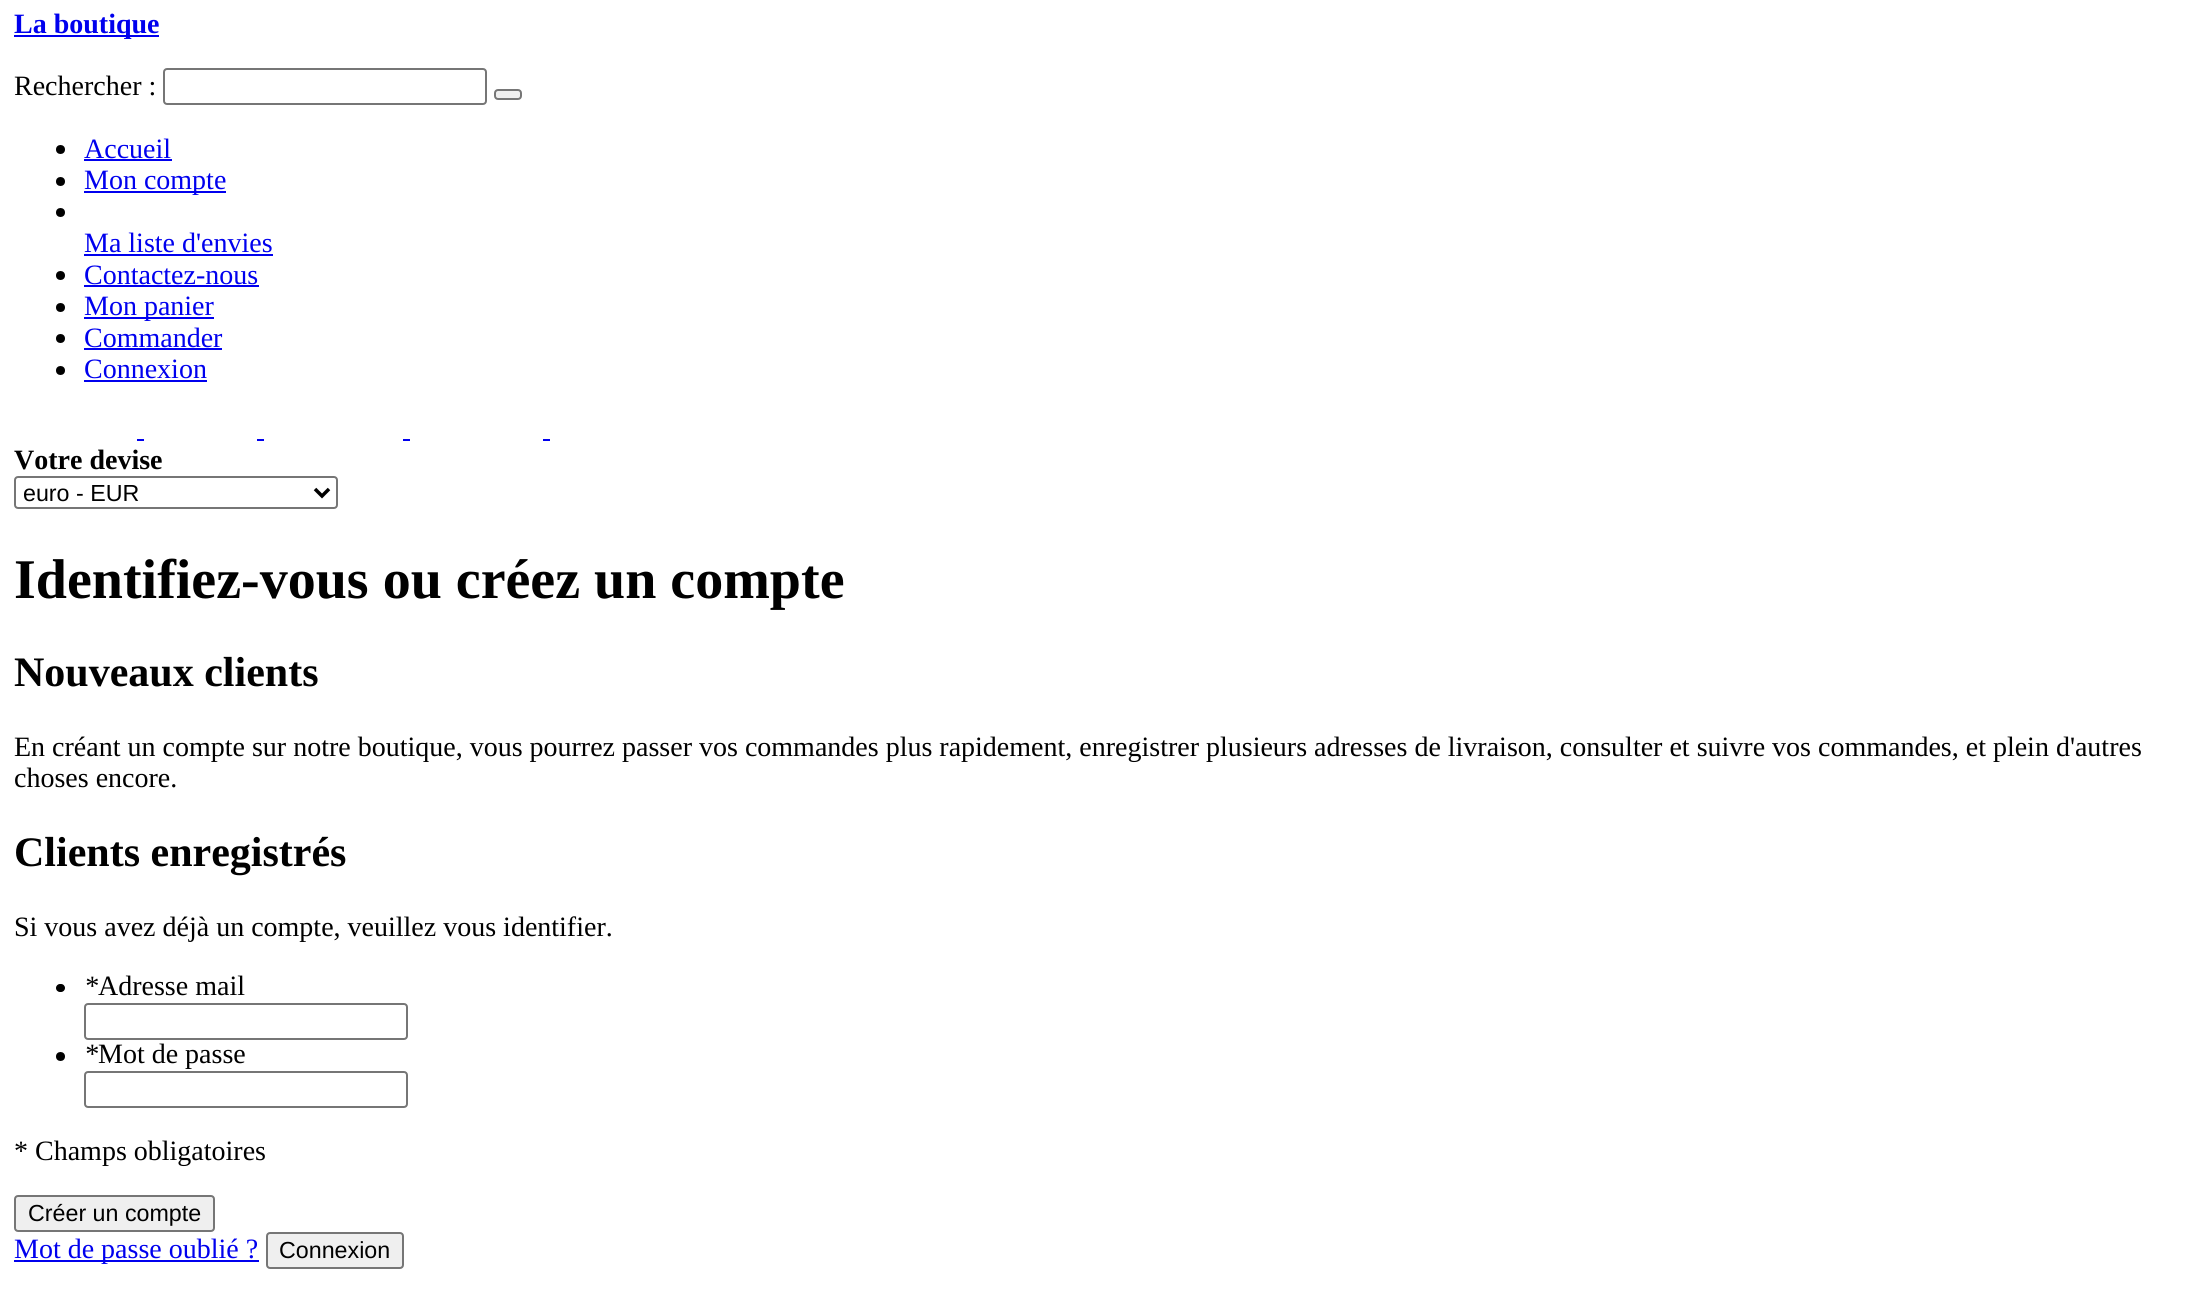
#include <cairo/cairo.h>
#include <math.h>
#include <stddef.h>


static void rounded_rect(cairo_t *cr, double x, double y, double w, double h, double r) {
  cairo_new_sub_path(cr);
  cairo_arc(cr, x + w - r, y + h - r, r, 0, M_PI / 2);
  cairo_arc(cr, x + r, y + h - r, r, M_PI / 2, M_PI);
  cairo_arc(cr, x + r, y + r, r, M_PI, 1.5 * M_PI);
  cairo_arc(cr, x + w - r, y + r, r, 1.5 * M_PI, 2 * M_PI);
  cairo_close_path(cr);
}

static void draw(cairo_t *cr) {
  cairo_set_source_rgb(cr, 1, 1, 1);
  cairo_paint(cr);
  cairo_set_source_rgb(cr, 0, 0, 238 / 255.0);
  cairo_rectangle(cr, 14, 35, 145, 2);
  cairo_fill(cr);
  rounded_rect(cr, 164, 69, 322, 35, 3);
  cairo_set_source_rgb(cr, 118 / 255.0, 118 / 255.0, 118 / 255.0);
  cairo_stroke(cr);
  cairo_set_source_rgb(cr, 239 / 255.0, 239 / 255.0, 239 / 255.0);
  rounded_rect(cr, 495, 90, 26, 9, 3);
  cairo_fill_preserve(cr);
  cairo_set_source_rgb(cr, 118 / 255.0, 118 / 255.0, 118 / 255.0);
  cairo_stroke(cr);
  cairo_set_source_rgb(cr, 0, 0, 0);
  cairo_arc(cr, 60.5, 149.5, 4.5, 0, 2 * M_PI);
  cairo_fill(cr);
  cairo_set_source_rgb(cr, 0, 0, 238 / 255.0);
  cairo_rectangle(cr, 84, 159, 88, 2);
  cairo_fill(cr);
  cairo_set_source_rgb(cr, 0, 0, 0);
  cairo_arc(cr, 60.5, 181.5, 4.5, 0, 2 * M_PI);
  cairo_fill(cr);
  cairo_set_source_rgb(cr, 0, 0, 238 / 255.0);
  cairo_rectangle(cr, 84, 191, 142, 2);
  cairo_fill(cr);
  cairo_set_source_rgb(cr, 0, 0, 0);
  cairo_arc(cr, 60.5, 212.5, 4.5, 0, 2 * M_PI);
  cairo_fill(cr);
  cairo_set_source_rgb(cr, 0, 0, 238 / 255.0);
  cairo_rectangle(cr, 84, 254, 189, 2);
  cairo_fill(cr);
  cairo_set_source_rgb(cr, 0, 0, 0);
  cairo_arc(cr, 60.5, 275.5, 4.5, 0, 2 * M_PI);
  cairo_fill(cr);
  cairo_set_source_rgb(cr, 0, 0, 238 / 255.0);
  cairo_rectangle(cr, 84, 285, 175, 2);
  cairo_fill(cr);
  cairo_set_source_rgb(cr, 0, 0, 0);
  cairo_arc(cr, 60.5, 307.5, 4.5, 0, 2 * M_PI);
  cairo_fill(cr);
  cairo_set_source_rgb(cr, 0, 0, 238 / 255.0);
  cairo_rectangle(cr, 84, 317, 130, 2);
  cairo_fill(cr);
  cairo_set_source_rgb(cr, 0, 0, 0);
  cairo_arc(cr, 60.5, 338.5, 4.5, 0, 2 * M_PI);
  cairo_fill(cr);
  cairo_set_source_rgb(cr, 0, 0, 238 / 255.0);
  cairo_rectangle(cr, 84, 348, 138, 2);
  cairo_fill(cr);
  cairo_set_source_rgb(cr, 0, 0, 0);
  cairo_arc(cr, 60.5, 370.5, 4.5, 0, 2 * M_PI);
  cairo_fill(cr);
  cairo_set_source_rgb(cr, 0, 0, 238 / 255.0);
  cairo_rectangle(cr, 84, 380, 123, 2);
  cairo_fill(cr);
  cairo_rectangle(cr, 137, 439, 7, 2);
  cairo_fill(cr);
  cairo_rectangle(cr, 257, 439, 7, 2);
  cairo_fill(cr);
  cairo_rectangle(cr, 403, 439, 7, 2);
  cairo_fill(cr);
  cairo_rectangle(cr, 543, 439, 7, 2);
  cairo_fill(cr);
  rounded_rect(cr, 15, 477, 322, 31, 3);
  cairo_set_source_rgb(cr, 118 / 255.0, 118 / 255.0, 118 / 255.0);
  cairo_stroke(cr);
  cairo_new_path(cr);
  cairo_move_to(cr, 315, 489);
  cairo_line_to(cr, 322, 496);
  cairo_line_to(cr, 329, 489);
  cairo_set_source_rgb(cr, 0, 0, 0);
  cairo_set_line_width(cr, 3.5);
  cairo_stroke(cr);
  rounded_rect(cr, 56, 984, 9, 8, 4);
  cairo_fill(cr);
  rounded_rect(cr, 85, 1004, 322, 35, 3);
  cairo_set_source_rgb(cr, 118 / 255.0, 118 / 255.0, 118 / 255.0);
  cairo_set_line_width(cr, 2);
  cairo_stroke(cr);
  cairo_set_source_rgb(cr, 0, 0, 0);
  cairo_arc(cr, 60.5, 1056.5, 4.5, 0, 2 * M_PI);
  cairo_fill(cr);
  rounded_rect(cr, 85, 1072, 322, 35, 3);
  cairo_set_source_rgb(cr, 118 / 255.0, 118 / 255.0, 118 / 255.0);
  cairo_stroke(cr);
  cairo_set_source_rgb(cr, 239 / 255.0, 239 / 255.0, 239 / 255.0);
  rounded_rect(cr, 15, 1196, 199, 35, 3);
  cairo_fill_preserve(cr);
  cairo_set_source_rgb(cr, 118 / 255.0, 118 / 255.0, 118 / 255.0);
  cairo_stroke(cr);
  cairo_set_source_rgb(cr, 0, 0, 238 / 255.0);
  cairo_rectangle(cr, 14, 1260, 245, 2);
  cairo_fill(cr);
  cairo_set_source_rgb(cr, 239 / 255.0, 239 / 255.0, 239 / 255.0);
  rounded_rect(cr, 267, 1233, 136, 35, 3);
  cairo_fill_preserve(cr);
  cairo_set_source_rgb(cr, 118 / 255.0, 118 / 255.0, 118 / 255.0);
  cairo_stroke(cr);
  cairo_select_font_face(cr, "Liberation Serif", CAIRO_FONT_SLANT_NORMAL, CAIRO_FONT_WEIGHT_BOLD);
  cairo_set_font_size(cr, 28);
  cairo_set_source_rgb(cr, 0, 0, 238 / 255.0);
  cairo_move_to(cr, 14, 33);
  cairo_show_text(cr, "La boutique");
  cairo_select_font_face(cr, "Liberation Serif", CAIRO_FONT_SLANT_NORMAL, CAIRO_FONT_WEIGHT_NORMAL);
  cairo_set_source_rgb(cr, 0, 0, 0);
  cairo_move_to(cr, 14, 95);
  cairo_show_text(cr, "Rechercher :");
  cairo_set_source_rgb(cr, 0, 0, 238 / 255.0);
  cairo_move_to(cr, 84, 158);
  cairo_show_text(cr, "Accueil");
  cairo_move_to(cr, 84, 189);
  cairo_show_text(cr, "Mon compte");
  cairo_move_to(cr, 84, 252);
  cairo_show_text(cr, "Ma liste d'envies");
  cairo_move_to(cr, 84, 284);
  cairo_show_text(cr, "Contactez-nous");
  cairo_move_to(cr, 84, 315);
  cairo_show_text(cr, "Mon panier");
  cairo_move_to(cr, 84, 347);
  cairo_show_text(cr, "Commander");
  cairo_move_to(cr, 84, 378);
  cairo_show_text(cr, "Connexion");
  cairo_select_font_face(cr, "Liberation Serif", CAIRO_FONT_SLANT_NORMAL, CAIRO_FONT_WEIGHT_BOLD);
  cairo_set_source_rgb(cr, 0, 0, 0);
  cairo_move_to(cr, 14, 469);
  cairo_show_text(cr, "Votre devise");
  cairo_select_font_face(cr, "Liberation Sans", CAIRO_FONT_SLANT_NORMAL, CAIRO_FONT_WEIGHT_NORMAL);
  cairo_set_font_size(cr, 23.25);
  cairo_move_to(cr, 23, 501);
  cairo_show_text(cr, "euro - EUR");
  cairo_select_font_face(cr, "Liberation Serif", CAIRO_FONT_SLANT_NORMAL, CAIRO_FONT_WEIGHT_BOLD);
  cairo_set_font_size(cr, 56);
  cairo_move_to(cr, 14, 598);
  cairo_show_text(cr, "Identifiez-vous ou créez un compte");
  cairo_set_font_size(cr, 42);
  cairo_move_to(cr, 14, 686);
  cairo_show_text(cr, "Nouveaux clients");
  cairo_select_font_face(cr, "Liberation Serif", CAIRO_FONT_SLANT_NORMAL, CAIRO_FONT_WEIGHT_NORMAL);
  cairo_set_font_size(cr, 28);
  cairo_move_to(cr, 14, 756);
  cairo_show_text(cr, "En créant un compte sur notre boutique, vous pourrez passer vos commandes plus rapidement, enregistrer plusieurs adresses de livraison, consulter et suivre vos commandes, et plein d'autres");
  cairo_move_to(cr, 14, 787);
  cairo_show_text(cr, "choses encore.");
  cairo_select_font_face(cr, "Liberation Serif", CAIRO_FONT_SLANT_NORMAL, CAIRO_FONT_WEIGHT_BOLD);
  cairo_set_font_size(cr, 42);
  cairo_move_to(cr, 14, 866);
  cairo_show_text(cr, "Clients enregistrés");
  cairo_select_font_face(cr, "Liberation Serif", CAIRO_FONT_SLANT_NORMAL, CAIRO_FONT_WEIGHT_NORMAL);
  cairo_set_font_size(cr, 28);
  cairo_move_to(cr, 14, 936);
  cairo_show_text(cr, "Si vous avez déjà un compte, veuillez vous identifier.");
  cairo_select_font_face(cr, "Liberation Serif", CAIRO_FONT_SLANT_ITALIC, CAIRO_FONT_WEIGHT_NORMAL);
  cairo_move_to(cr, 84, 995);
  cairo_show_text(cr, "*");
  cairo_select_font_face(cr, "Liberation Serif", CAIRO_FONT_SLANT_NORMAL, CAIRO_FONT_WEIGHT_NORMAL);
  cairo_move_to(cr, 98, 995);
  cairo_show_text(cr, "Adresse mail");
  cairo_select_font_face(cr, "Liberation Serif", CAIRO_FONT_SLANT_ITALIC, CAIRO_FONT_WEIGHT_NORMAL);
  cairo_move_to(cr, 84, 1063);
  cairo_show_text(cr, "*");
  cairo_select_font_face(cr, "Liberation Serif", CAIRO_FONT_SLANT_NORMAL, CAIRO_FONT_WEIGHT_NORMAL);
  cairo_move_to(cr, 98, 1063);
  cairo_show_text(cr, "Mot de passe");
  cairo_move_to(cr, 14, 1160);
  cairo_show_text(cr, "* Champs obligatoires");
  cairo_select_font_face(cr, "Liberation Sans", CAIRO_FONT_SLANT_NORMAL, CAIRO_FONT_WEIGHT_NORMAL);
  cairo_set_font_size(cr, 23.25);
  cairo_move_to(cr, 28, 1221);
  cairo_show_text(cr, "Créer un compte");
  cairo_select_font_face(cr, "Liberation Serif", CAIRO_FONT_SLANT_NORMAL, CAIRO_FONT_WEIGHT_NORMAL);
  cairo_set_font_size(cr, 28);
  cairo_set_source_rgb(cr, 0, 0, 238 / 255.0);
  cairo_move_to(cr, 14, 1258);
  cairo_show_text(cr, "Mot de passe oublié ?");
  cairo_select_font_face(cr, "Liberation Sans", CAIRO_FONT_SLANT_NORMAL, CAIRO_FONT_WEIGHT_NORMAL);
  cairo_set_font_size(cr, 23.25);
  cairo_set_source_rgb(cr, 0, 0, 0);
  cairo_move_to(cr, 279, 1258);
  cairo_show_text(cr, "Connexion");
}

int main(void) {
  cairo_surface_t *surface = cairo_image_surface_create(CAIRO_FORMAT_RGB24, 2196, 1306);
  cairo_t *cr = cairo_create(surface);
  cairo_font_options_t *options = cairo_font_options_create();
  cairo_font_options_set_hint_metrics(options, CAIRO_HINT_METRICS_OFF);
  cairo_font_options_set_hint_style(options, CAIRO_HINT_STYLE_NONE);
  cairo_set_font_options(cr, options);
  cairo_set_miter_limit(cr, 4);
  draw(cr);
  cairo_surface_write_to_png(surface, "out.png");
  cairo_font_options_destroy(options);
  cairo_destroy(cr);
  cairo_surface_destroy(surface);
  return 0;
}
